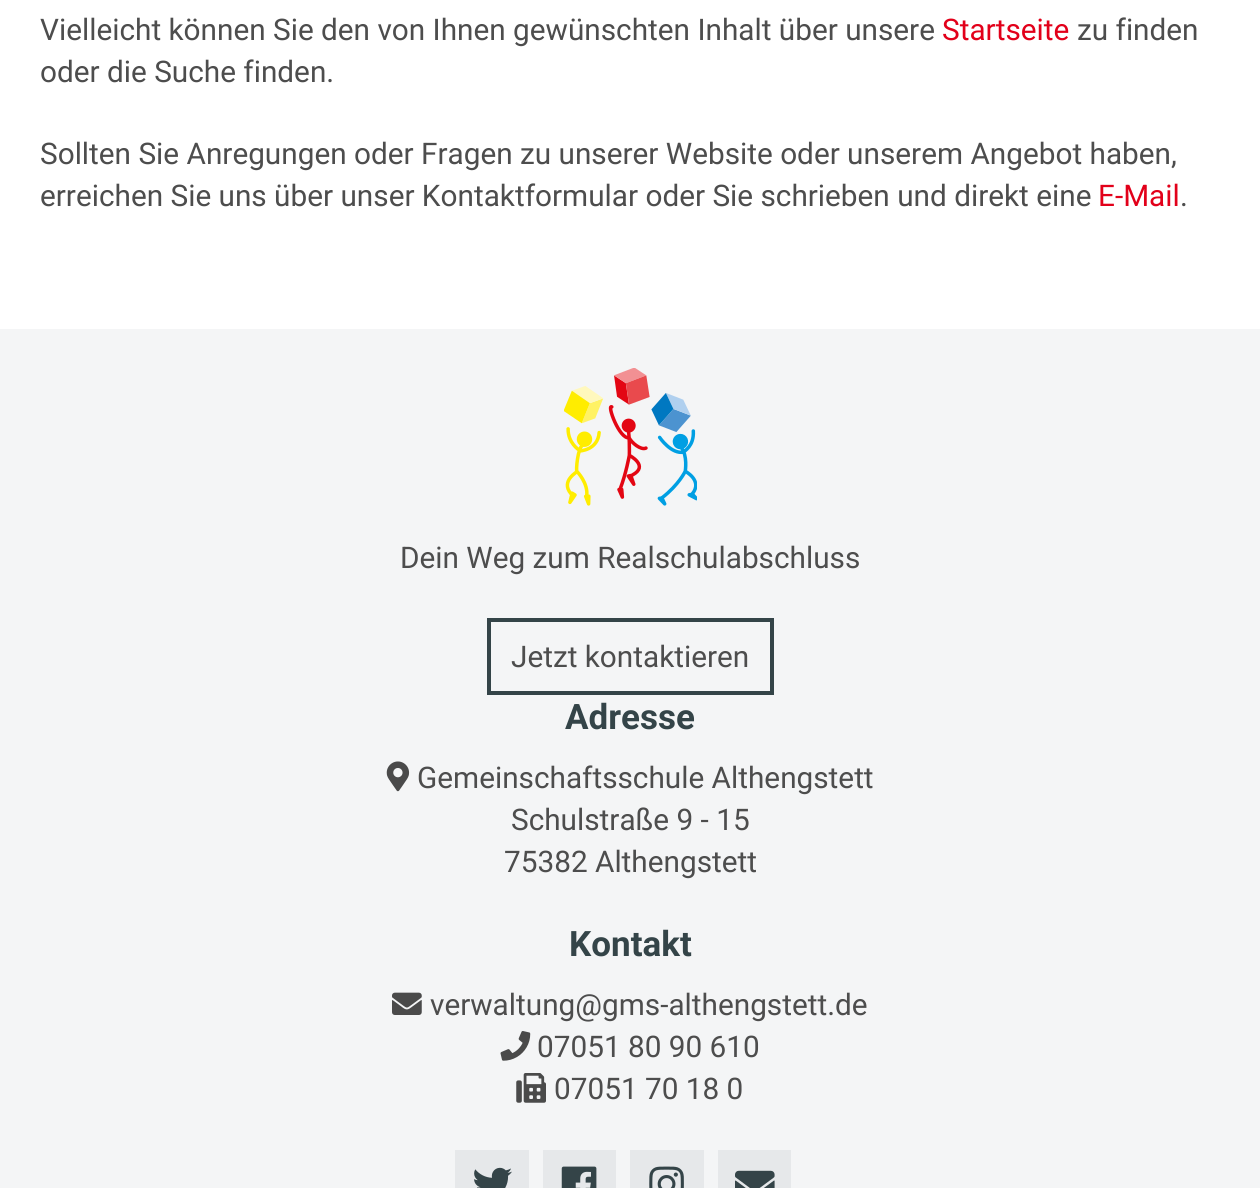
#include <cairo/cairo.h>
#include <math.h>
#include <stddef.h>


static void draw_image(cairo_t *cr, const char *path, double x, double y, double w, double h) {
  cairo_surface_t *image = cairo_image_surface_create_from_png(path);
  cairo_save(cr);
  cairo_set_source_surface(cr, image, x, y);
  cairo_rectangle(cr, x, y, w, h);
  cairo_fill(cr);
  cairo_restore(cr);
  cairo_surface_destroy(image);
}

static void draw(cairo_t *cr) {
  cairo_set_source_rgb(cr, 1, 1, 1);
  cairo_paint(cr);
  cairo_set_source_rgb(cr, 244 / 255.0, 245 / 255.0, 246 / 255.0);
  cairo_rectangle(cr, 0, 329, 1260, 859);
  cairo_fill(cr);
  draw_image(cr, "images/1.png", 564, 368, 133, 138);
  cairo_rectangle(cr, 489, 620, 283, 73);
  cairo_set_source_rgb(cr, 52 / 255.0, 68 / 255.0, 72 / 255.0);
  cairo_set_line_width(cr, 4);
  cairo_stroke(cr);
  draw_image(cr, "images/2.png", 386, 761, 24, 31);
  draw_image(cr, "images/3.png", 392, 992, 30, 23);
  draw_image(cr, "images/4.png", 500, 1031, 31, 30);
  draw_image(cr, "images/5.png", 516, 1073, 30, 30);
  cairo_set_source_rgb(cr, 230 / 255.0, 232 / 255.0, 234 / 255.0);
  cairo_rectangle(cr, 455, 1150, 74, 38);
  cairo_fill(cr);
  draw_image(cr, "images/6.png", 474, 1167, 38, 21);
  cairo_rectangle(cr, 543, 1150, 73, 38);
  cairo_fill(cr);
  draw_image(cr, "images/7.png", 561, 1166, 36, 22);
  cairo_rectangle(cr, 630, 1150, 74, 38);
  cairo_fill(cr);
  draw_image(cr, "images/8.png", 649, 1166, 35, 22);
  cairo_rectangle(cr, 718, 1150, 73, 38);
  cairo_fill(cr);
  draw_image(cr, "images/9.png", 735, 1170, 40, 18);
  cairo_select_font_face(cr, "Roboto", CAIRO_FONT_SLANT_NORMAL, CAIRO_FONT_WEIGHT_NORMAL);
  cairo_set_font_size(cr, 29.75);
  cairo_set_source_rgb(cr, 77 / 255.0, 77 / 255.0, 77 / 255.0);
  cairo_move_to(cr, 40, 40);
  cairo_show_text(cr, "Vielleicht können Sie den von Ihnen gewünschten Inhalt über unsere");
  cairo_set_source_rgb(cr, 226 / 255.0, 0, 26 / 255.0);
  cairo_move_to(cr, 942, 40);
  cairo_show_text(cr, "Startseite");
  cairo_set_source_rgb(cr, 77 / 255.0, 77 / 255.0, 77 / 255.0);
  cairo_move_to(cr, 1077, 40);
  cairo_show_text(cr, "zu finden");
  cairo_move_to(cr, 40, 82);
  cairo_show_text(cr, "oder die Suche finden.");
  cairo_move_to(cr, 40, 164);
  cairo_show_text(cr, "Sollten Sie Anregungen oder Fragen zu unserer Website oder unserem Angebot haben,");
  cairo_move_to(cr, 40, 206);
  cairo_show_text(cr, "erreichen Sie uns über unser Kontaktformular oder Sie schrieben und direkt eine");
  cairo_set_source_rgb(cr, 226 / 255.0, 0, 26 / 255.0);
  cairo_move_to(cr, 1098, 206);
  cairo_show_text(cr, "E-Mail");
  cairo_set_source_rgb(cr, 77 / 255.0, 77 / 255.0, 77 / 255.0);
  cairo_move_to(cr, 1180, 206);
  cairo_show_text(cr, ".");
  cairo_move_to(cr, 400, 568);
  cairo_show_text(cr, "Dein Weg zum Realschulabschluss");
  cairo_move_to(cr, 511, 667);
  cairo_show_text(cr, "Jetzt kontaktieren");
  cairo_select_font_face(cr, "Roboto", CAIRO_FONT_SLANT_NORMAL, CAIRO_FONT_WEIGHT_BOLD);
  cairo_set_font_size(cr, 35);
  cairo_set_source_rgb(cr, 52 / 255.0, 68 / 255.0, 72 / 255.0);
  cairo_move_to(cr, 565, 729);
  cairo_show_text(cr, "Adresse");
  cairo_select_font_face(cr, "Roboto", CAIRO_FONT_SLANT_NORMAL, CAIRO_FONT_WEIGHT_NORMAL);
  cairo_set_font_size(cr, 29.75);
  cairo_set_source_rgb(cr, 77 / 255.0, 77 / 255.0, 77 / 255.0);
  cairo_move_to(cr, 417, 788);
  cairo_show_text(cr, "Gemeinschaftsschule Althengstett");
  cairo_move_to(cr, 511, 830);
  cairo_show_text(cr, "Schulstraße 9 - 15");
  cairo_move_to(cr, 504, 872);
  cairo_show_text(cr, "75382 Althengstett");
  cairo_select_font_face(cr, "Roboto", CAIRO_FONT_SLANT_NORMAL, CAIRO_FONT_WEIGHT_BOLD);
  cairo_set_font_size(cr, 35);
  cairo_set_source_rgb(cr, 52 / 255.0, 68 / 255.0, 72 / 255.0);
  cairo_move_to(cr, 569, 956);
  cairo_show_text(cr, "Kontakt");
  cairo_select_font_face(cr, "Roboto", CAIRO_FONT_SLANT_NORMAL, CAIRO_FONT_WEIGHT_NORMAL);
  cairo_set_font_size(cr, 29.75);
  cairo_set_source_rgb(cr, 77 / 255.0, 77 / 255.0, 77 / 255.0);
  cairo_move_to(cr, 430, 1015);
  cairo_show_text(cr, "verwaltung@gms-althengstett.de");
  cairo_move_to(cr, 537, 1057);
  cairo_show_text(cr, "07051 80 90 610");
  cairo_move_to(cr, 554, 1099);
  cairo_show_text(cr, "07051 70 18 0");
}

int main(void) {
  cairo_surface_t *surface = cairo_image_surface_create(CAIRO_FORMAT_RGB24, 1260, 1188);
  cairo_t *cr = cairo_create(surface);
  cairo_font_options_t *options = cairo_font_options_create();
  cairo_font_options_set_hint_metrics(options, CAIRO_HINT_METRICS_OFF);
  cairo_font_options_set_hint_style(options, CAIRO_HINT_STYLE_NONE);
  cairo_set_font_options(cr, options);
  cairo_set_miter_limit(cr, 4);
  draw(cr);
  cairo_surface_write_to_png(surface, "out.png");
  cairo_font_options_destroy(options);
  cairo_destroy(cr);
  cairo_surface_destroy(surface);
  return 0;
}
